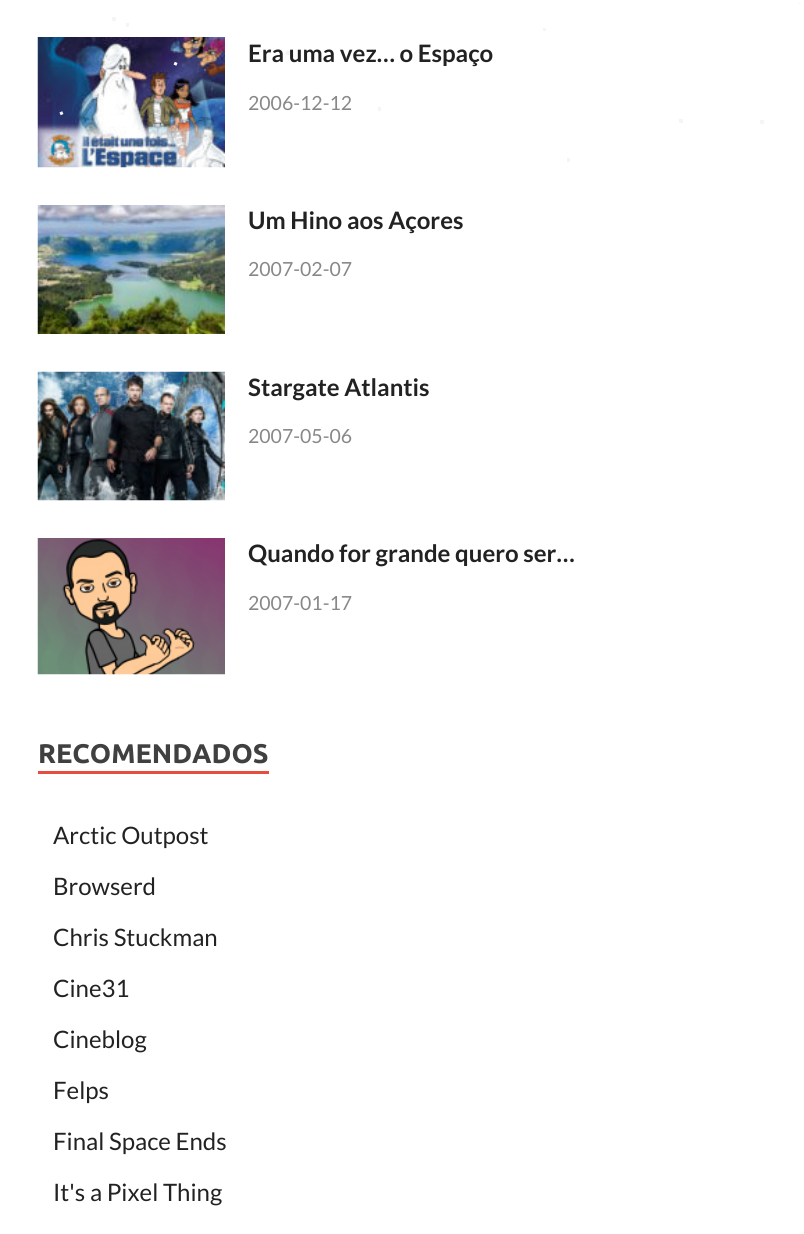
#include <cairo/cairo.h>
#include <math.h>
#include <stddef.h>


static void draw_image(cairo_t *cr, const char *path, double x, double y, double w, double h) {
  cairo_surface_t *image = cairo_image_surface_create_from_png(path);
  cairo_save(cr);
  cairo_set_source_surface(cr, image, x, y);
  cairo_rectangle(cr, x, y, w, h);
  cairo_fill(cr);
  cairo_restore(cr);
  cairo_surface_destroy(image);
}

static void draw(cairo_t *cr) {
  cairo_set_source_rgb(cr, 1, 1, 1);
  cairo_paint(cr);
  draw_image(cr, "images/1.png", 799, 2, 2, 2);
  cairo_set_source_rgb(cr, 245 / 255.0, 245 / 255.0, 245 / 255.0);
  cairo_rectangle(cr, 112, 17, 4, 4);
  cairo_fill(cr);
  cairo_rectangle(cr, 126, 23, 3, 4);
  cairo_fill(cr);
  cairo_rectangle(cr, 543, 28, 3, 3);
  cairo_fill(cr);
  draw_image(cr, "images/2.png", 37, 37, 188, 131);
  draw_image(cr, "images/3.png", 37, 205, 188, 129);
  draw_image(cr, "images/4.png", 37, 371, 188, 130);
  draw_image(cr, "images/5.png", 37, 538, 188, 137);
  cairo_set_source_rgb(cr, 231 / 255.0, 76 / 255.0, 60 / 255.0);
  cairo_rectangle(cr, 38, 771, 231, 3);
  cairo_fill(cr);
  draw_image(cr, "images/6.png", 173, 61, 5, 5);
  cairo_set_source_rgb(cr, 245 / 255.0, 245 / 255.0, 245 / 255.0);
  cairo_rectangle(cr, 378, 107, 3, 4);
  cairo_fill(cr);
  draw_image(cr, "images/7.png", 59, 111, 5, 5);
  cairo_rectangle(cr, 679, 119, 4, 4);
  cairo_fill(cr);
  cairo_rectangle(cr, 760, 120, 4, 4);
  cairo_fill(cr);
  cairo_rectangle(cr, 567, 158, 3, 4);
  cairo_fill(cr);
  cairo_select_font_face(cr, "Lato", CAIRO_FONT_SLANT_NORMAL, CAIRO_FONT_WEIGHT_BOLD);
  cairo_set_font_size(cr, 24);
  cairo_set_source_rgb(cr, 34 / 255.0, 34 / 255.0, 34 / 255.0);
  cairo_move_to(cr, 248, 62);
  cairo_show_text(cr, "Era uma vez… o Espaço");
  cairo_select_font_face(cr, "Lato", CAIRO_FONT_SLANT_NORMAL, CAIRO_FONT_WEIGHT_NORMAL);
  cairo_set_font_size(cr, 19.5);
  cairo_set_source_rgb(cr, 136 / 255.0, 136 / 255.0, 136 / 255.0);
  cairo_move_to(cr, 248, 110);
  cairo_show_text(cr, "2006-12-12");
  cairo_select_font_face(cr, "Lato", CAIRO_FONT_SLANT_NORMAL, CAIRO_FONT_WEIGHT_BOLD);
  cairo_set_font_size(cr, 24);
  cairo_set_source_rgb(cr, 34 / 255.0, 34 / 255.0, 34 / 255.0);
  cairo_move_to(cr, 248, 229);
  cairo_show_text(cr, "Um Hino aos Açores");
  cairo_select_font_face(cr, "Lato", CAIRO_FONT_SLANT_NORMAL, CAIRO_FONT_WEIGHT_NORMAL);
  cairo_set_font_size(cr, 19.5);
  cairo_set_source_rgb(cr, 136 / 255.0, 136 / 255.0, 136 / 255.0);
  cairo_move_to(cr, 248, 276);
  cairo_show_text(cr, "2007-02-07");
  cairo_select_font_face(cr, "Lato", CAIRO_FONT_SLANT_NORMAL, CAIRO_FONT_WEIGHT_BOLD);
  cairo_set_font_size(cr, 24);
  cairo_set_source_rgb(cr, 34 / 255.0, 34 / 255.0, 34 / 255.0);
  cairo_move_to(cr, 248, 396);
  cairo_show_text(cr, "Stargate Atlantis");
  cairo_select_font_face(cr, "Lato", CAIRO_FONT_SLANT_NORMAL, CAIRO_FONT_WEIGHT_NORMAL);
  cairo_set_font_size(cr, 19.5);
  cairo_set_source_rgb(cr, 136 / 255.0, 136 / 255.0, 136 / 255.0);
  cairo_move_to(cr, 248, 443);
  cairo_show_text(cr, "2007-05-06");
  cairo_select_font_face(cr, "Lato", CAIRO_FONT_SLANT_NORMAL, CAIRO_FONT_WEIGHT_BOLD);
  cairo_set_font_size(cr, 24);
  cairo_set_source_rgb(cr, 34 / 255.0, 34 / 255.0, 34 / 255.0);
  cairo_move_to(cr, 248, 562);
  cairo_show_text(cr, "Quando for grande quero ser…");
  cairo_select_font_face(cr, "Lato", CAIRO_FONT_SLANT_NORMAL, CAIRO_FONT_WEIGHT_NORMAL);
  cairo_set_font_size(cr, 19.5);
  cairo_set_source_rgb(cr, 136 / 255.0, 136 / 255.0, 136 / 255.0);
  cairo_move_to(cr, 248, 610);
  cairo_show_text(cr, "2007-01-17");
  cairo_select_font_face(cr, "Ubuntu", CAIRO_FONT_SLANT_NORMAL, CAIRO_FONT_WEIGHT_BOLD);
  cairo_set_font_size(cr, 27);
  cairo_set_source_rgb(cr, 64 / 255.0, 64 / 255.0, 64 / 255.0);
  cairo_move_to(cr, 38, 763);
  cairo_show_text(cr, "RECOMENDADOS");
  cairo_select_font_face(cr, "Lato", CAIRO_FONT_SLANT_NORMAL, CAIRO_FONT_WEIGHT_NORMAL);
  cairo_set_font_size(cr, 24);
  cairo_set_source_rgb(cr, 34 / 255.0, 34 / 255.0, 34 / 255.0);
  cairo_move_to(cr, 53, 844);
  cairo_show_text(cr, "Arctic Outpost");
  cairo_move_to(cr, 53, 895);
  cairo_show_text(cr, "Browserd");
  cairo_move_to(cr, 53, 946);
  cairo_show_text(cr, "Chris Stuckman");
  cairo_move_to(cr, 53, 997);
  cairo_show_text(cr, "Cine31");
  cairo_move_to(cr, 53, 1048);
  cairo_show_text(cr, "Cineblog");
  cairo_move_to(cr, 53, 1099);
  cairo_show_text(cr, "Felps");
  cairo_move_to(cr, 53, 1150);
  cairo_show_text(cr, "Final Space Ends");
  cairo_move_to(cr, 53, 1201);
  cairo_show_text(cr, "It's a Pixel Thing");
  cairo_set_source_rgb(cr, 245 / 255.0, 245 / 255.0, 245 / 255.0);
  cairo_rectangle(cr, 286, 51, 4, 4);
  cairo_fill(cr);
}

int main(void) {
  cairo_surface_t *surface = cairo_image_surface_create(CAIRO_FORMAT_RGB24, 804, 1234);
  cairo_t *cr = cairo_create(surface);
  cairo_font_options_t *options = cairo_font_options_create();
  cairo_font_options_set_hint_metrics(options, CAIRO_HINT_METRICS_OFF);
  cairo_font_options_set_hint_style(options, CAIRO_HINT_STYLE_NONE);
  cairo_set_font_options(cr, options);
  cairo_set_miter_limit(cr, 4);
  draw(cr);
  cairo_surface_write_to_png(surface, "out.png");
  cairo_font_options_destroy(options);
  cairo_destroy(cr);
  cairo_surface_destroy(surface);
  return 0;
}
